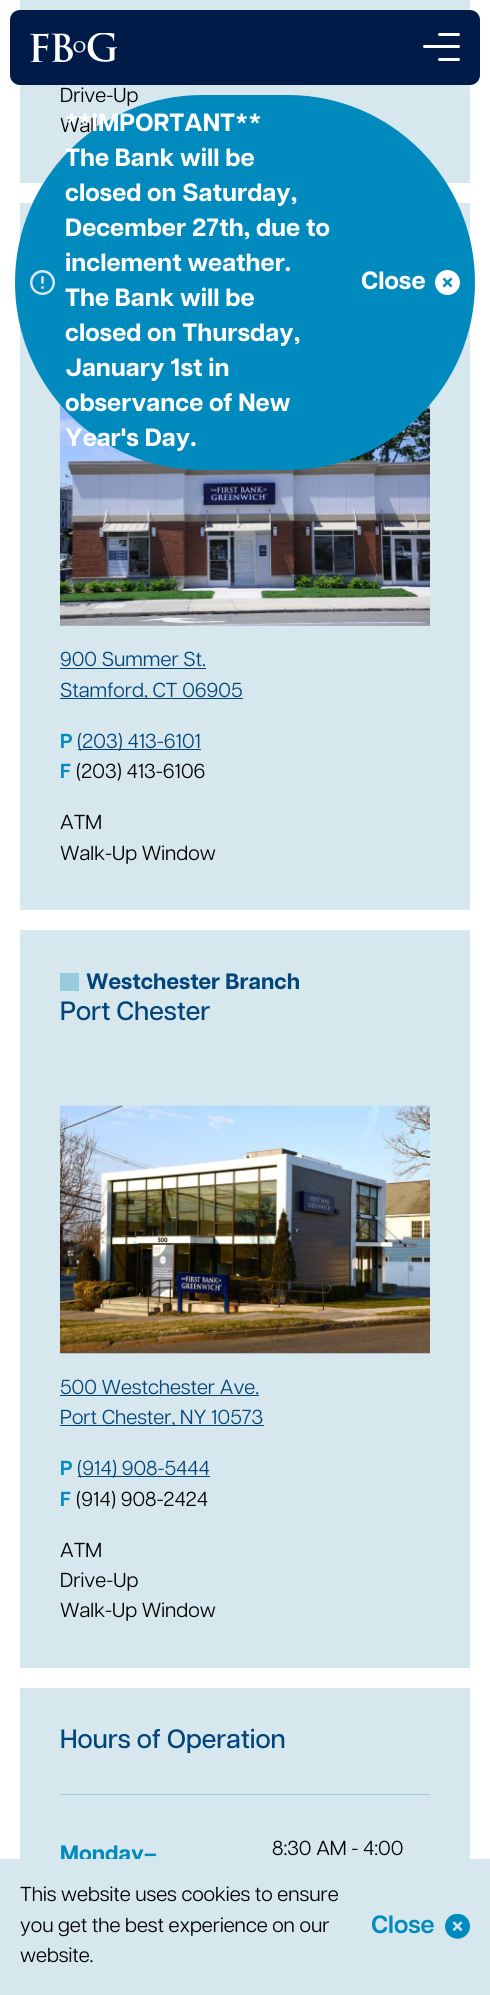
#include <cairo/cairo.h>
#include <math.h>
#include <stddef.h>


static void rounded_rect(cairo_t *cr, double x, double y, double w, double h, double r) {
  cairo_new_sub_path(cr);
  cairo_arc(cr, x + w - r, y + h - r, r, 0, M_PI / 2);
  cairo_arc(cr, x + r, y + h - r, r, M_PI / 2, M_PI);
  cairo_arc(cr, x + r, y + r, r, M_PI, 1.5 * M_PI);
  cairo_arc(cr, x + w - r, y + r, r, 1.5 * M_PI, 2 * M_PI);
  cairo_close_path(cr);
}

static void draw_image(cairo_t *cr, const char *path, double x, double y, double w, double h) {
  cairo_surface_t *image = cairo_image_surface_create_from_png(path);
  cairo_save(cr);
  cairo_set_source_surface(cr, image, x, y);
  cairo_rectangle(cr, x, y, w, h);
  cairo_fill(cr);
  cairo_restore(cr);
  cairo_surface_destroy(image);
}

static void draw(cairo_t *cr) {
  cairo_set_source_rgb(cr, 1, 1, 1);
  cairo_paint(cr);
  cairo_set_source_rgb(cr, 214 / 255.0, 231 / 255.0, 238 / 255.0);
  cairo_rectangle(cr, 20, 0, 450, 183);
  cairo_fill(cr);
  cairo_rectangle(cr, 20, 203, 450, 707);
  cairo_fill(cr);
  draw_image(cr, "images/1.png", 60, 404, 370, 222);
  cairo_set_source_rgb(cr, 2 / 255.0, 69 / 255.0, 122 / 255.0);
  cairo_rectangle(cr, 60, 668, 146, 1);
  cairo_fill(cr);
  cairo_rectangle(cr, 60, 698, 183, 1);
  cairo_fill(cr);
  cairo_rectangle(cr, 78, 749, 123, 1);
  cairo_fill(cr);
  cairo_set_source_rgb(cr, 214 / 255.0, 231 / 255.0, 238 / 255.0);
  cairo_rectangle(cr, 20, 930, 450, 738);
  cairo_fill(cr);
  cairo_set_source_rgb(cr, 151 / 255.0, 202 / 255.0, 219 / 255.0);
  cairo_rectangle(cr, 60, 973, 19, 18);
  cairo_fill(cr);
  draw_image(cr, "images/2.png", 60, 1105, 370, 249);
  cairo_set_source_rgb(cr, 2 / 255.0, 69 / 255.0, 122 / 255.0);
  cairo_rectangle(cr, 60, 1395, 199, 1);
  cairo_fill(cr);
  cairo_rectangle(cr, 60, 1425, 204, 1);
  cairo_fill(cr);
  cairo_rectangle(cr, 78, 1476, 132, 1);
  cairo_fill(cr);
  cairo_set_source_rgb(cr, 214 / 255.0, 231 / 255.0, 238 / 255.0);
  cairo_rectangle(cr, 20, 1688, 450, 171);
  cairo_fill(cr);
  cairo_set_source_rgb(cr, 151 / 255.0, 202 / 255.0, 219 / 255.0);
  cairo_rectangle(cr, 60, 1794, 370, 1);
  cairo_fill(cr);
  cairo_set_source_rgb(cr, 0, 27 / 255.0, 72 / 255.0);
  rounded_rect(cr, 10, 10, 470, 75, 10);
  cairo_fill(cr);
  draw_image(cr, "images/3.png", 30, 33, 87, 29);
  cairo_set_source_rgb(cr, 1, 1, 1);
  rounded_rect(cr, 438, 33, 22, 3, 1.5);
  cairo_fill(cr);
  rounded_rect(cr, 423, 45, 37, 3, 1.5);
  cairo_fill(cr);
  rounded_rect(cr, 438, 58, 22, 3, 1.5);
  cairo_fill(cr);
  cairo_select_font_face(cr, "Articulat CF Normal", CAIRO_FONT_SLANT_NORMAL, CAIRO_FONT_WEIGHT_NORMAL);
  cairo_set_font_size(cr, 20.25);
  cairo_set_source_rgb(cr, 0, 0, 0);
  cairo_move_to(cr, 60, 102);
  cairo_show_text(cr, "Drive-Up");
  cairo_move_to(cr, 60, 132);
  cairo_show_text(cr, "Walk");
  cairo_set_source_rgb(cr, 2 / 255.0, 69 / 255.0, 122 / 255.0);
  cairo_move_to(cr, 60, 666);
  cairo_show_text(cr, "900 Summer St.");
  cairo_move_to(cr, 60, 697);
  cairo_show_text(cr, "Stamford, CT 06905");
  cairo_select_font_face(cr, "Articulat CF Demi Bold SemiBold", CAIRO_FONT_SLANT_NORMAL, CAIRO_FONT_WEIGHT_NORMAL);
  cairo_set_source_rgb(cr, 1 / 255.0, 138 / 255.0, 190 / 255.0);
  cairo_move_to(cr, 60, 748);
  cairo_show_text(cr, "P");
  cairo_select_font_face(cr, "Articulat CF Normal", CAIRO_FONT_SLANT_NORMAL, CAIRO_FONT_WEIGHT_NORMAL);
  cairo_set_source_rgb(cr, 2 / 255.0, 69 / 255.0, 122 / 255.0);
  cairo_move_to(cr, 77, 748);
  cairo_show_text(cr, "(203) 413-6101");
  cairo_select_font_face(cr, "Articulat CF Demi Bold SemiBold", CAIRO_FONT_SLANT_NORMAL, CAIRO_FONT_WEIGHT_NORMAL);
  cairo_set_source_rgb(cr, 1 / 255.0, 138 / 255.0, 190 / 255.0);
  cairo_move_to(cr, 60, 778);
  cairo_show_text(cr, "F");
  cairo_select_font_face(cr, "Articulat CF Normal", CAIRO_FONT_SLANT_NORMAL, CAIRO_FONT_WEIGHT_NORMAL);
  cairo_set_source_rgb(cr, 0, 0, 0);
  cairo_move_to(cr, 76, 778);
  cairo_show_text(cr, "(203) 413-6106");
  cairo_move_to(cr, 60, 829);
  cairo_show_text(cr, "ATM");
  cairo_move_to(cr, 60, 860);
  cairo_show_text(cr, "Walk-Up Window");
  cairo_select_font_face(cr, "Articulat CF", CAIRO_FONT_SLANT_NORMAL, CAIRO_FONT_WEIGHT_BOLD);
  cairo_set_font_size(cr, 22.25);
  cairo_set_source_rgb(cr, 2 / 255.0, 69 / 255.0, 122 / 255.0);
  cairo_move_to(cr, 86, 989);
  cairo_show_text(cr, "Westchester Branch");
  cairo_select_font_face(cr, "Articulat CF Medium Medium", CAIRO_FONT_SLANT_NORMAL, CAIRO_FONT_WEIGHT_NORMAL);
  cairo_set_font_size(cr, 26.5);
  cairo_move_to(cr, 60, 1020);
  cairo_show_text(cr, "Port Chester");
  cairo_select_font_face(cr, "Articulat CF Normal", CAIRO_FONT_SLANT_NORMAL, CAIRO_FONT_WEIGHT_NORMAL);
  cairo_set_font_size(cr, 20.25);
  cairo_move_to(cr, 60, 1394);
  cairo_show_text(cr, "500 Westchester Ave.");
  cairo_move_to(cr, 60, 1424);
  cairo_show_text(cr, "Port Chester, NY 10573");
  cairo_select_font_face(cr, "Articulat CF Demi Bold SemiBold", CAIRO_FONT_SLANT_NORMAL, CAIRO_FONT_WEIGHT_NORMAL);
  cairo_set_source_rgb(cr, 1 / 255.0, 138 / 255.0, 190 / 255.0);
  cairo_move_to(cr, 60, 1475);
  cairo_show_text(cr, "P");
  cairo_select_font_face(cr, "Articulat CF Normal", CAIRO_FONT_SLANT_NORMAL, CAIRO_FONT_WEIGHT_NORMAL);
  cairo_set_source_rgb(cr, 2 / 255.0, 69 / 255.0, 122 / 255.0);
  cairo_move_to(cr, 77, 1475);
  cairo_show_text(cr, "(914) 908-5444");
  cairo_select_font_face(cr, "Articulat CF Demi Bold SemiBold", CAIRO_FONT_SLANT_NORMAL, CAIRO_FONT_WEIGHT_NORMAL);
  cairo_set_source_rgb(cr, 1 / 255.0, 138 / 255.0, 190 / 255.0);
  cairo_move_to(cr, 60, 1506);
  cairo_show_text(cr, "F");
  cairo_select_font_face(cr, "Articulat CF Normal", CAIRO_FONT_SLANT_NORMAL, CAIRO_FONT_WEIGHT_NORMAL);
  cairo_set_source_rgb(cr, 0, 0, 0);
  cairo_move_to(cr, 76, 1506);
  cairo_show_text(cr, "(914) 908-2424");
  cairo_move_to(cr, 60, 1557);
  cairo_show_text(cr, "ATM");
  cairo_move_to(cr, 60, 1587);
  cairo_show_text(cr, "Drive-Up");
  cairo_move_to(cr, 60, 1617);
  cairo_show_text(cr, "Walk-Up Window");
  cairo_select_font_face(cr, "Articulat CF Medium Medium", CAIRO_FONT_SLANT_NORMAL, CAIRO_FONT_WEIGHT_NORMAL);
  cairo_set_font_size(cr, 26.5);
  cairo_set_source_rgb(cr, 2 / 255.0, 69 / 255.0, 122 / 255.0);
  cairo_move_to(cr, 60, 1748);
  cairo_show_text(cr, "Hours of Operation");
  cairo_select_font_face(cr, "Articulat CF", CAIRO_FONT_SLANT_NORMAL, CAIRO_FONT_WEIGHT_BOLD);
  cairo_set_font_size(cr, 22.25);
  cairo_set_source_rgb(cr, 1 / 255.0, 138 / 255.0, 190 / 255.0);
  cairo_move_to(cr, 60, 1861);
  cairo_show_text(cr, "Monday–");
  cairo_select_font_face(cr, "Articulat CF Normal", CAIRO_FONT_SLANT_NORMAL, CAIRO_FONT_WEIGHT_NORMAL);
  cairo_set_font_size(cr, 20.25);
  cairo_set_source_rgb(cr, 0, 0, 0);
  cairo_move_to(cr, 272, 1855);
  cairo_show_text(cr, "8:30 AM - 4:00");
  cairo_set_source_rgb(cr, 1 / 255.0, 138 / 255.0, 190 / 255.0);
  rounded_rect(cr, 15, 95, 460, 375, 187.5);
  cairo_fill(cr);
  cairo_select_font_face(cr, "Articulat CF", CAIRO_FONT_SLANT_NORMAL, CAIRO_FONT_WEIGHT_BOLD);
  cairo_set_font_size(cr, 25);
  cairo_set_source_rgb(cr, 1, 1, 1);
  cairo_move_to(cr, 65, 131);
  cairo_show_text(cr, "**IMPORTANT**");
  cairo_move_to(cr, 65, 166);
  cairo_show_text(cr, "The Bank will be");
  cairo_move_to(cr, 65, 201);
  cairo_show_text(cr, "closed on Saturday,");
  cairo_move_to(cr, 65, 236);
  cairo_show_text(cr, "December 27th, due to");
  cairo_move_to(cr, 65, 271);
  cairo_show_text(cr, "inclement weather.");
  draw_image(cr, "images/4.png", 30, 270, 25, 25);
  cairo_move_to(cr, 65, 306);
  cairo_show_text(cr, "The Bank will be");
  cairo_move_to(cr, 65, 341);
  cairo_show_text(cr, "closed on Thursday,");
  cairo_move_to(cr, 65, 376);
  cairo_show_text(cr, "January 1st in");
  cairo_move_to(cr, 65, 411);
  cairo_show_text(cr, "observance of New");
  cairo_move_to(cr, 65, 446);
  cairo_show_text(cr, "Year's Day.");
  cairo_move_to(cr, 361, 289);
  cairo_show_text(cr, "Close");
  draw_image(cr, "images/5.png", 435, 270, 25, 25);
  cairo_set_source_rgb(cr, 214 / 255.0, 231 / 255.0, 238 / 255.0);
  cairo_rectangle(cr, 0, 1859, 490, 136);
  cairo_fill(cr);
  cairo_select_font_face(cr, "Articulat CF Normal", CAIRO_FONT_SLANT_NORMAL, CAIRO_FONT_WEIGHT_NORMAL);
  cairo_set_font_size(cr, 20.25);
  cairo_set_source_rgb(cr, 0, 0, 0);
  cairo_move_to(cr, 20, 1901);
  cairo_show_text(cr, "This website uses cookies to ensure");
  cairo_move_to(cr, 20, 1932);
  cairo_show_text(cr, "you get the best experience on our");
  cairo_move_to(cr, 20, 1962);
  cairo_show_text(cr, "website.");
  cairo_select_font_face(cr, "Articulat CF Demi Bold SemiBold", CAIRO_FONT_SLANT_NORMAL, CAIRO_FONT_WEIGHT_NORMAL);
  cairo_set_font_size(cr, 25);
  cairo_set_source_rgb(cr, 1 / 255.0, 138 / 255.0, 190 / 255.0);
  cairo_move_to(cr, 371, 1933);
  cairo_show_text(cr, "Close");
  draw_image(cr, "images/6.png", 445, 1914, 25, 25);
}

int main(void) {
  cairo_surface_t *surface = cairo_image_surface_create(CAIRO_FORMAT_RGB24, 490, 1995);
  cairo_t *cr = cairo_create(surface);
  cairo_font_options_t *options = cairo_font_options_create();
  cairo_font_options_set_hint_metrics(options, CAIRO_HINT_METRICS_OFF);
  cairo_font_options_set_hint_style(options, CAIRO_HINT_STYLE_NONE);
  cairo_set_font_options(cr, options);
  cairo_set_miter_limit(cr, 4);
  draw(cr);
  cairo_surface_write_to_png(surface, "out.png");
  cairo_font_options_destroy(options);
  cairo_destroy(cr);
  cairo_surface_destroy(surface);
  return 0;
}
